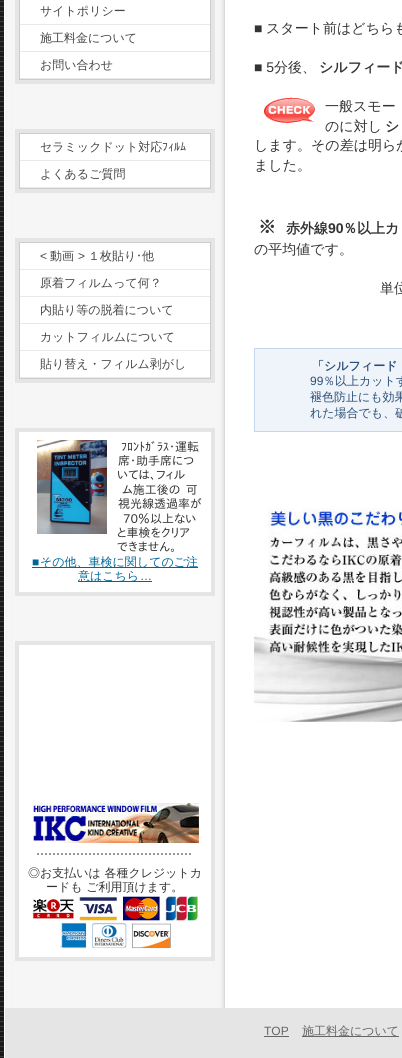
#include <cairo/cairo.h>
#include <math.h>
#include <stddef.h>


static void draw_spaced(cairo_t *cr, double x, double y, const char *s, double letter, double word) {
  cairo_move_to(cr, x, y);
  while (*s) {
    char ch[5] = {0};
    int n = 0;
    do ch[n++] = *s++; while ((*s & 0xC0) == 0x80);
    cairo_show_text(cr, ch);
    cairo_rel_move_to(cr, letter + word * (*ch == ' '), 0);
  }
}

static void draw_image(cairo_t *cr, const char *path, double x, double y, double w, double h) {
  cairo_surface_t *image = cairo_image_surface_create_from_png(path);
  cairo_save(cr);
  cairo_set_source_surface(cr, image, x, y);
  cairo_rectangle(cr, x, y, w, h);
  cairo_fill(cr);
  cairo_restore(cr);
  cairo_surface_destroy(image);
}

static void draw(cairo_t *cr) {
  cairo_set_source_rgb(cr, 1, 1, 1);
  cairo_paint(cr);
  draw_image(cr, "images/1.png", 0, 0, 4, 1058);
  draw_image(cr, "images/2.png", 5, 0, 220, 1008);
  cairo_set_source_rgb(cr, 229 / 255.0, 229 / 255.0, 229 / 255.0);
  cairo_rectangle(cr, 15, 0, 200, 84);
  cairo_fill(cr);
  cairo_rectangle(cr, 19.5, -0.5, 191, 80);
  cairo_set_source_rgb(cr, 204 / 255.0, 204 / 255.0, 204 / 255.0);
  cairo_set_line_width(cr, 1);
  cairo_stroke(cr);
  cairo_set_source_rgb(cr, 233 / 255.0, 233 / 255.0, 233 / 255.0);
  cairo_rectangle(cr, 20, 24, 190, 1);
  cairo_fill(cr);
  cairo_set_source_rgb(cr, 1, 1, 1);
  cairo_rectangle(cr, 20, 0, 190, 24);
  cairo_fill(cr);
  cairo_set_source_rgb(cr, 233 / 255.0, 233 / 255.0, 233 / 255.0);
  cairo_rectangle(cr, 20, 51, 190, 1);
  cairo_fill(cr);
  cairo_set_source_rgb(cr, 1, 1, 1);
  cairo_rectangle(cr, 20, 25, 190, 26);
  cairo_fill(cr);
  cairo_set_source_rgb(cr, 233 / 255.0, 233 / 255.0, 233 / 255.0);
  cairo_rectangle(cr, 20, 78, 190, 1);
  cairo_fill(cr);
  cairo_set_source_rgb(cr, 1, 1, 1);
  cairo_rectangle(cr, 20, 52, 190, 26);
  cairo_fill(cr);
  cairo_set_source_rgb(cr, 229 / 255.0, 229 / 255.0, 229 / 255.0);
  cairo_rectangle(cr, 15, 129, 200, 64);
  cairo_fill(cr);
  cairo_rectangle(cr, 19.5, 133.5, 191, 55);
  cairo_set_source_rgb(cr, 204 / 255.0, 204 / 255.0, 204 / 255.0);
  cairo_stroke(cr);
  cairo_set_source_rgb(cr, 233 / 255.0, 233 / 255.0, 233 / 255.0);
  cairo_rectangle(cr, 20, 160, 190, 1);
  cairo_fill(cr);
  cairo_set_source_rgb(cr, 1, 1, 1);
  cairo_rectangle(cr, 20, 134, 190, 26);
  cairo_fill(cr);
  cairo_set_source_rgb(cr, 233 / 255.0, 233 / 255.0, 233 / 255.0);
  cairo_rectangle(cr, 20, 187, 190, 1);
  cairo_fill(cr);
  cairo_set_source_rgb(cr, 1, 1, 1);
  cairo_rectangle(cr, 20, 161, 190, 26);
  cairo_fill(cr);
  cairo_set_source_rgb(cr, 229 / 255.0, 229 / 255.0, 229 / 255.0);
  cairo_rectangle(cr, 15, 238, 200, 145);
  cairo_fill(cr);
  cairo_rectangle(cr, 19.5, 242.5, 191, 136);
  cairo_set_source_rgb(cr, 204 / 255.0, 204 / 255.0, 204 / 255.0);
  cairo_stroke(cr);
  cairo_set_source_rgb(cr, 233 / 255.0, 233 / 255.0, 233 / 255.0);
  cairo_rectangle(cr, 20, 269, 190, 1);
  cairo_fill(cr);
  cairo_set_source_rgb(cr, 1, 1, 1);
  cairo_rectangle(cr, 20, 243, 190, 26);
  cairo_fill(cr);
  cairo_set_source_rgb(cr, 233 / 255.0, 233 / 255.0, 233 / 255.0);
  cairo_rectangle(cr, 20, 296, 190, 1);
  cairo_fill(cr);
  cairo_set_source_rgb(cr, 1, 1, 1);
  cairo_rectangle(cr, 20, 270, 190, 26);
  cairo_fill(cr);
  cairo_set_source_rgb(cr, 233 / 255.0, 233 / 255.0, 233 / 255.0);
  cairo_rectangle(cr, 20, 323, 190, 1);
  cairo_fill(cr);
  cairo_set_source_rgb(cr, 1, 1, 1);
  cairo_rectangle(cr, 20, 297, 190, 26);
  cairo_fill(cr);
  cairo_set_source_rgb(cr, 233 / 255.0, 233 / 255.0, 233 / 255.0);
  cairo_rectangle(cr, 20, 350, 190, 1);
  cairo_fill(cr);
  cairo_set_source_rgb(cr, 1, 1, 1);
  cairo_rectangle(cr, 20, 324, 190, 26);
  cairo_fill(cr);
  cairo_set_source_rgb(cr, 233 / 255.0, 233 / 255.0, 233 / 255.0);
  cairo_rectangle(cr, 20, 377, 190, 1);
  cairo_fill(cr);
  cairo_set_source_rgb(cr, 1, 1, 1);
  cairo_rectangle(cr, 20, 351, 190, 26);
  cairo_fill(cr);
  cairo_set_source_rgb(cr, 229 / 255.0, 229 / 255.0, 229 / 255.0);
  cairo_rectangle(cr, 15, 428, 200, 168);
  cairo_fill(cr);
  cairo_set_source_rgb(cr, 1, 1, 1);
  cairo_rectangle(cr, 19, 432, 192, 160);
  cairo_fill(cr);
  draw_image(cr, "images/3.png", 37, 440, 70, 94);
  cairo_set_source_rgb(cr, 0, 102 / 255.0, 153 / 255.0);
  cairo_rectangle(cr, 32, 567, 166, 1);
  cairo_fill(cr);
  cairo_rectangle(cr, 78, 581, 74, 1);
  cairo_fill(cr);
  cairo_set_source_rgb(cr, 229 / 255.0, 229 / 255.0, 229 / 255.0);
  cairo_rectangle(cr, 15, 641, 200, 320);
  cairo_fill(cr);
  cairo_set_source_rgb(cr, 1, 1, 1);
  cairo_rectangle(cr, 19, 645, 192, 312);
  cairo_fill(cr);
  draw_image(cr, "images/4.png", 32, 803, 167, 40);
  cairo_new_path(cr);
  cairo_move_to(cr, 37, 854);
  cairo_line_to(cr, 193, 854);
  cairo_set_source_rgb(cr, 153 / 255.0, 153 / 255.0, 153 / 255.0);
  cairo_set_line_width(cr, 2);
  cairo_set_dash(cr, (double[]){2, 2}, 2, 0);
  cairo_stroke(cr);
  draw_image(cr, "images/5.png", 32, 895, 166, 26);
  draw_image(cr, "images/6.png", 59, 922, 112, 27);
  draw_image(cr, "images/7.png", 264, 97, 51, 26);
  cairo_set_source_rgb(cr, 239 / 255.0, 244 / 255.0, 250 / 255.0);
  cairo_rectangle(cr, 254.5, 348.5, 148, 83);
  cairo_fill_preserve(cr);
  cairo_set_source_rgb(cr, 197 / 255.0, 215 / 255.0, 237 / 255.0);
  cairo_set_line_width(cr, 1);
  cairo_set_dash(cr, NULL, 0, 0);
  cairo_stroke(cr);
  draw_image(cr, "images/8.png", 254, 508, 148, 214);
  cairo_set_source_rgb(cr, 229 / 255.0, 229 / 255.0, 229 / 255.0);
  cairo_rectangle(cr, 5, 1008, 397, 50);
  cairo_fill(cr);
  cairo_set_source_rgb(cr, 102 / 255.0, 102 / 255.0, 102 / 255.0);
  cairo_rectangle(cr, 264, 1036, 25, 1);
  cairo_fill(cr);
  cairo_rectangle(cr, 302, 1036, 97, 1);
  cairo_fill(cr);
  cairo_select_font_face(cr, "WenQuanYi Zen Hei Medium", CAIRO_FONT_SLANT_NORMAL, CAIRO_FONT_WEIGHT_NORMAL);
  cairo_set_font_size(cr, 12);
  cairo_set_source_rgb(cr, 69 / 255.0, 69 / 255.0, 69 / 255.0);
  cairo_move_to(cr, 40, 15);
  cairo_show_text(cr, "サイトポリシー");
  cairo_move_to(cr, 40, 42);
  cairo_show_text(cr, "施工料金について");
  cairo_move_to(cr, 40, 69);
  cairo_show_text(cr, "お問い合わせ");
  cairo_move_to(cr, 40, 151);
  cairo_show_text(cr, "セラミックドット対応");
  cairo_select_font_face(cr, "IPAPGothic", CAIRO_FONT_SLANT_NORMAL, CAIRO_FONT_WEIGHT_NORMAL);
  cairo_move_to(cr, 162, 151);
  cairo_show_text(cr, "ﾌｨﾙﾑ");
  cairo_select_font_face(cr, "WenQuanYi Zen Hei Medium", CAIRO_FONT_SLANT_NORMAL, CAIRO_FONT_WEIGHT_NORMAL);
  cairo_move_to(cr, 40, 178);
  cairo_show_text(cr, "よくあるご質問");
  cairo_select_font_face(cr, "Liberation Sans", CAIRO_FONT_SLANT_NORMAL, CAIRO_FONT_WEIGHT_NORMAL);
  cairo_move_to(cr, 40, 260);
  cairo_show_text(cr, "<");
  cairo_select_font_face(cr, "WenQuanYi Zen Hei Medium", CAIRO_FONT_SLANT_NORMAL, CAIRO_FONT_WEIGHT_NORMAL);
  cairo_move_to(cr, 50, 260);
  cairo_show_text(cr, "動画");
  cairo_select_font_face(cr, "Liberation Sans", CAIRO_FONT_SLANT_NORMAL, CAIRO_FONT_WEIGHT_NORMAL);
  cairo_move_to(cr, 78, 260);
  cairo_show_text(cr, ">");
  cairo_select_font_face(cr, "WenQuanYi Zen Hei Medium", CAIRO_FONT_SLANT_NORMAL, CAIRO_FONT_WEIGHT_NORMAL);
  cairo_move_to(cr, 88, 260);
  cairo_show_text(cr, "１枚貼り");
  cairo_select_font_face(cr, "IPAPGothic", CAIRO_FONT_SLANT_NORMAL, CAIRO_FONT_WEIGHT_NORMAL);
  cairo_move_to(cr, 136, 260);
  cairo_show_text(cr, "･");
  cairo_select_font_face(cr, "WenQuanYi Zen Hei Medium", CAIRO_FONT_SLANT_NORMAL, CAIRO_FONT_WEIGHT_NORMAL);
  cairo_move_to(cr, 142, 260);
  cairo_show_text(cr, "他");
  cairo_move_to(cr, 40, 287);
  cairo_show_text(cr, "原着フィルムって何？");
  cairo_move_to(cr, 40, 314);
  cairo_show_text(cr, "内貼り等の脱着について");
  cairo_move_to(cr, 40, 341);
  cairo_show_text(cr, "カットフィルムについて");
  cairo_move_to(cr, 40, 368);
  cairo_show_text(cr, "貼り替え・フィルム剥がし");
  cairo_select_font_face(cr, "IPAPGothic", CAIRO_FONT_SLANT_NORMAL, CAIRO_FONT_WEIGHT_NORMAL);
  cairo_set_source_rgb(cr, 51 / 255.0, 51 / 255.0, 51 / 255.0);
  cairo_move_to(cr, 121, 451);
  cairo_show_text(cr, "ﾌﾛﾝﾄｶﾞﾗｽ・運転");
  cairo_move_to(cr, 118, 465);
  cairo_show_text(cr, "席・助手席につ");
  cairo_move_to(cr, 117, 479);
  cairo_show_text(cr, "いては、フィル");
  draw_spaced(cr, 122, 494, "ム施工後の 可", 0, 2);
  cairo_move_to(cr, 118, 508);
  cairo_show_text(cr, "視光線透過率が");
  cairo_move_to(cr, 123, 523);
  cairo_show_text(cr, "70％以上ない");
  cairo_move_to(cr, 117, 537);
  cairo_show_text(cr, "と車検をクリア");
  cairo_move_to(cr, 117, 551);
  cairo_show_text(cr, "できません。");
  cairo_select_font_face(cr, "Liberation Sans", CAIRO_FONT_SLANT_NORMAL, CAIRO_FONT_WEIGHT_NORMAL);
  cairo_set_source_rgb(cr, 0, 102 / 255.0, 153 / 255.0);
  cairo_move_to(cr, 32, 566);
  cairo_show_text(cr, "■");
  cairo_select_font_face(cr, "WenQuanYi Zen Hei Medium", CAIRO_FONT_SLANT_NORMAL, CAIRO_FONT_WEIGHT_NORMAL);
  cairo_move_to(cr, 40, 566);
  cairo_show_text(cr, "その他、車検に関してのご注");
  cairo_move_to(cr, 78, 580);
  cairo_show_text(cr, "意はこちら");
  cairo_select_font_face(cr, "Liberation Sans", CAIRO_FONT_SLANT_NORMAL, CAIRO_FONT_WEIGHT_NORMAL);
  cairo_move_to(cr, 140, 580);
  cairo_show_text(cr, "…");
  cairo_select_font_face(cr, "WenQuanYi Zen Hei Medium", CAIRO_FONT_SLANT_NORMAL, CAIRO_FONT_WEIGHT_NORMAL);
  cairo_set_source_rgb(cr, 51 / 255.0, 51 / 255.0, 51 / 255.0);
  cairo_move_to(cr, 28, 877);
  cairo_show_text(cr, "◎お支払いは 各種クレジットカ");
  cairo_move_to(cr, 46, 891);
  cairo_show_text(cr, "ードも ご利用頂けます。");
  cairo_select_font_face(cr, "Liberation Sans", CAIRO_FONT_SLANT_NORMAL, CAIRO_FONT_WEIGHT_NORMAL);
  cairo_set_font_size(cr, 14);
  cairo_move_to(cr, 254, 33);
  cairo_show_text(cr, "■");
  cairo_select_font_face(cr, "WenQuanYi Zen Hei Medium", CAIRO_FONT_SLANT_NORMAL, CAIRO_FONT_WEIGHT_NORMAL);
  cairo_move_to(cr, 266, 33);
  cairo_show_text(cr, "スタート前はどちらも");
  cairo_select_font_face(cr, "Liberation Sans", CAIRO_FONT_SLANT_NORMAL, CAIRO_FONT_WEIGHT_NORMAL);
  cairo_move_to(cr, 254, 72);
  cairo_show_text(cr, "■ 5");
  cairo_select_font_face(cr, "WenQuanYi Zen Hei Medium", CAIRO_FONT_SLANT_NORMAL, CAIRO_FONT_WEIGHT_NORMAL);
  cairo_move_to(cr, 274, 72);
  cairo_show_text(cr, "分後、");
  cairo_select_font_face(cr, "WenQuanYi Zen Hei", CAIRO_FONT_SLANT_NORMAL, CAIRO_FONT_WEIGHT_BOLD);
  cairo_move_to(cr, 319, 72);
  cairo_show_text(cr, "シルフィード");
  cairo_select_font_face(cr, "WenQuanYi Zen Hei Medium", CAIRO_FONT_SLANT_NORMAL, CAIRO_FONT_WEIGHT_NORMAL);
  cairo_move_to(cr, 325, 111);
  cairo_show_text(cr, "一般スモー");
  cairo_move_to(cr, 325, 131);
  cairo_show_text(cr, "のに対し");
  cairo_select_font_face(cr, "WenQuanYi Zen Hei", CAIRO_FONT_SLANT_NORMAL, CAIRO_FONT_WEIGHT_BOLD);
  cairo_move_to(cr, 385, 131);
  cairo_show_text(cr, "シ");
  cairo_select_font_face(cr, "WenQuanYi Zen Hei Medium", CAIRO_FONT_SLANT_NORMAL, CAIRO_FONT_WEIGHT_NORMAL);
  cairo_move_to(cr, 254, 150);
  cairo_show_text(cr, "します。その差は明らか");
  cairo_move_to(cr, 254, 170);
  cairo_show_text(cr, "ました。");
  cairo_select_font_face(cr, "WenQuanYi Zen Hei", CAIRO_FONT_SLANT_NORMAL, CAIRO_FONT_WEIGHT_BOLD);
  cairo_set_font_size(cr, 18);
  cairo_move_to(cr, 258, 233);
  cairo_show_text(cr, "※");
  cairo_set_font_size(cr, 14);
  cairo_move_to(cr, 286, 233);
  cairo_show_text(cr, "赤外線");
  cairo_select_font_face(cr, "Liberation Sans", CAIRO_FONT_SLANT_NORMAL, CAIRO_FONT_WEIGHT_BOLD);
  cairo_move_to(cr, 328, 233);
  cairo_show_text(cr, "90");
  cairo_select_font_face(cr, "WenQuanYi Zen Hei", CAIRO_FONT_SLANT_NORMAL, CAIRO_FONT_WEIGHT_BOLD);
  cairo_move_to(cr, 343, 233);
  cairo_show_text(cr, "％以上カ");
  cairo_select_font_face(cr, "WenQuanYi Zen Hei Medium", CAIRO_FONT_SLANT_NORMAL, CAIRO_FONT_WEIGHT_NORMAL);
  cairo_move_to(cr, 254, 254);
  cairo_show_text(cr, "の平均値です。");
  cairo_move_to(cr, 380, 293);
  cairo_show_text(cr, "単位");
  cairo_select_font_face(cr, "WenQuanYi Zen Hei", CAIRO_FONT_SLANT_NORMAL, CAIRO_FONT_WEIGHT_BOLD);
  cairo_set_font_size(cr, 12);
  cairo_set_source_rgb(cr, 44 / 255.0, 79 / 255.0, 122 / 255.0);
  cairo_move_to(cr, 312, 370);
  cairo_show_text(cr, "「シルフィード");
  cairo_select_font_face(cr, "Liberation Sans", CAIRO_FONT_SLANT_NORMAL, CAIRO_FONT_WEIGHT_NORMAL);
  cairo_move_to(cr, 310, 385);
  cairo_show_text(cr, "99");
  cairo_select_font_face(cr, "WenQuanYi Zen Hei Medium", CAIRO_FONT_SLANT_NORMAL, CAIRO_FONT_WEIGHT_NORMAL);
  cairo_move_to(cr, 323, 385);
  cairo_show_text(cr, "％以上カットす");
  cairo_move_to(cr, 310, 401);
  cairo_show_text(cr, "褪色防止にも効果");
  cairo_move_to(cr, 310, 417);
  cairo_show_text(cr, "れた場合でも、破");
  cairo_select_font_face(cr, "Liberation Sans", CAIRO_FONT_SLANT_NORMAL, CAIRO_FONT_WEIGHT_NORMAL);
  cairo_set_source_rgb(cr, 102 / 255.0, 102 / 255.0, 102 / 255.0);
  cairo_move_to(cr, 264, 1035);
  cairo_show_text(cr, "TOP");
  cairo_select_font_face(cr, "WenQuanYi Zen Hei Medium", CAIRO_FONT_SLANT_NORMAL, CAIRO_FONT_WEIGHT_NORMAL);
  cairo_move_to(cr, 302, 1035);
  cairo_show_text(cr, "施工料金について");
}

int main(void) {
  cairo_surface_t *surface = cairo_image_surface_create(CAIRO_FORMAT_RGB24, 402, 1058);
  cairo_t *cr = cairo_create(surface);
  cairo_font_options_t *options = cairo_font_options_create();
  cairo_font_options_set_hint_metrics(options, CAIRO_HINT_METRICS_OFF);
  cairo_font_options_set_hint_style(options, CAIRO_HINT_STYLE_NONE);
  cairo_set_font_options(cr, options);
  cairo_set_miter_limit(cr, 4);
  draw(cr);
  cairo_surface_write_to_png(surface, "out.png");
  cairo_font_options_destroy(options);
  cairo_destroy(cr);
  cairo_surface_destroy(surface);
  return 0;
}
